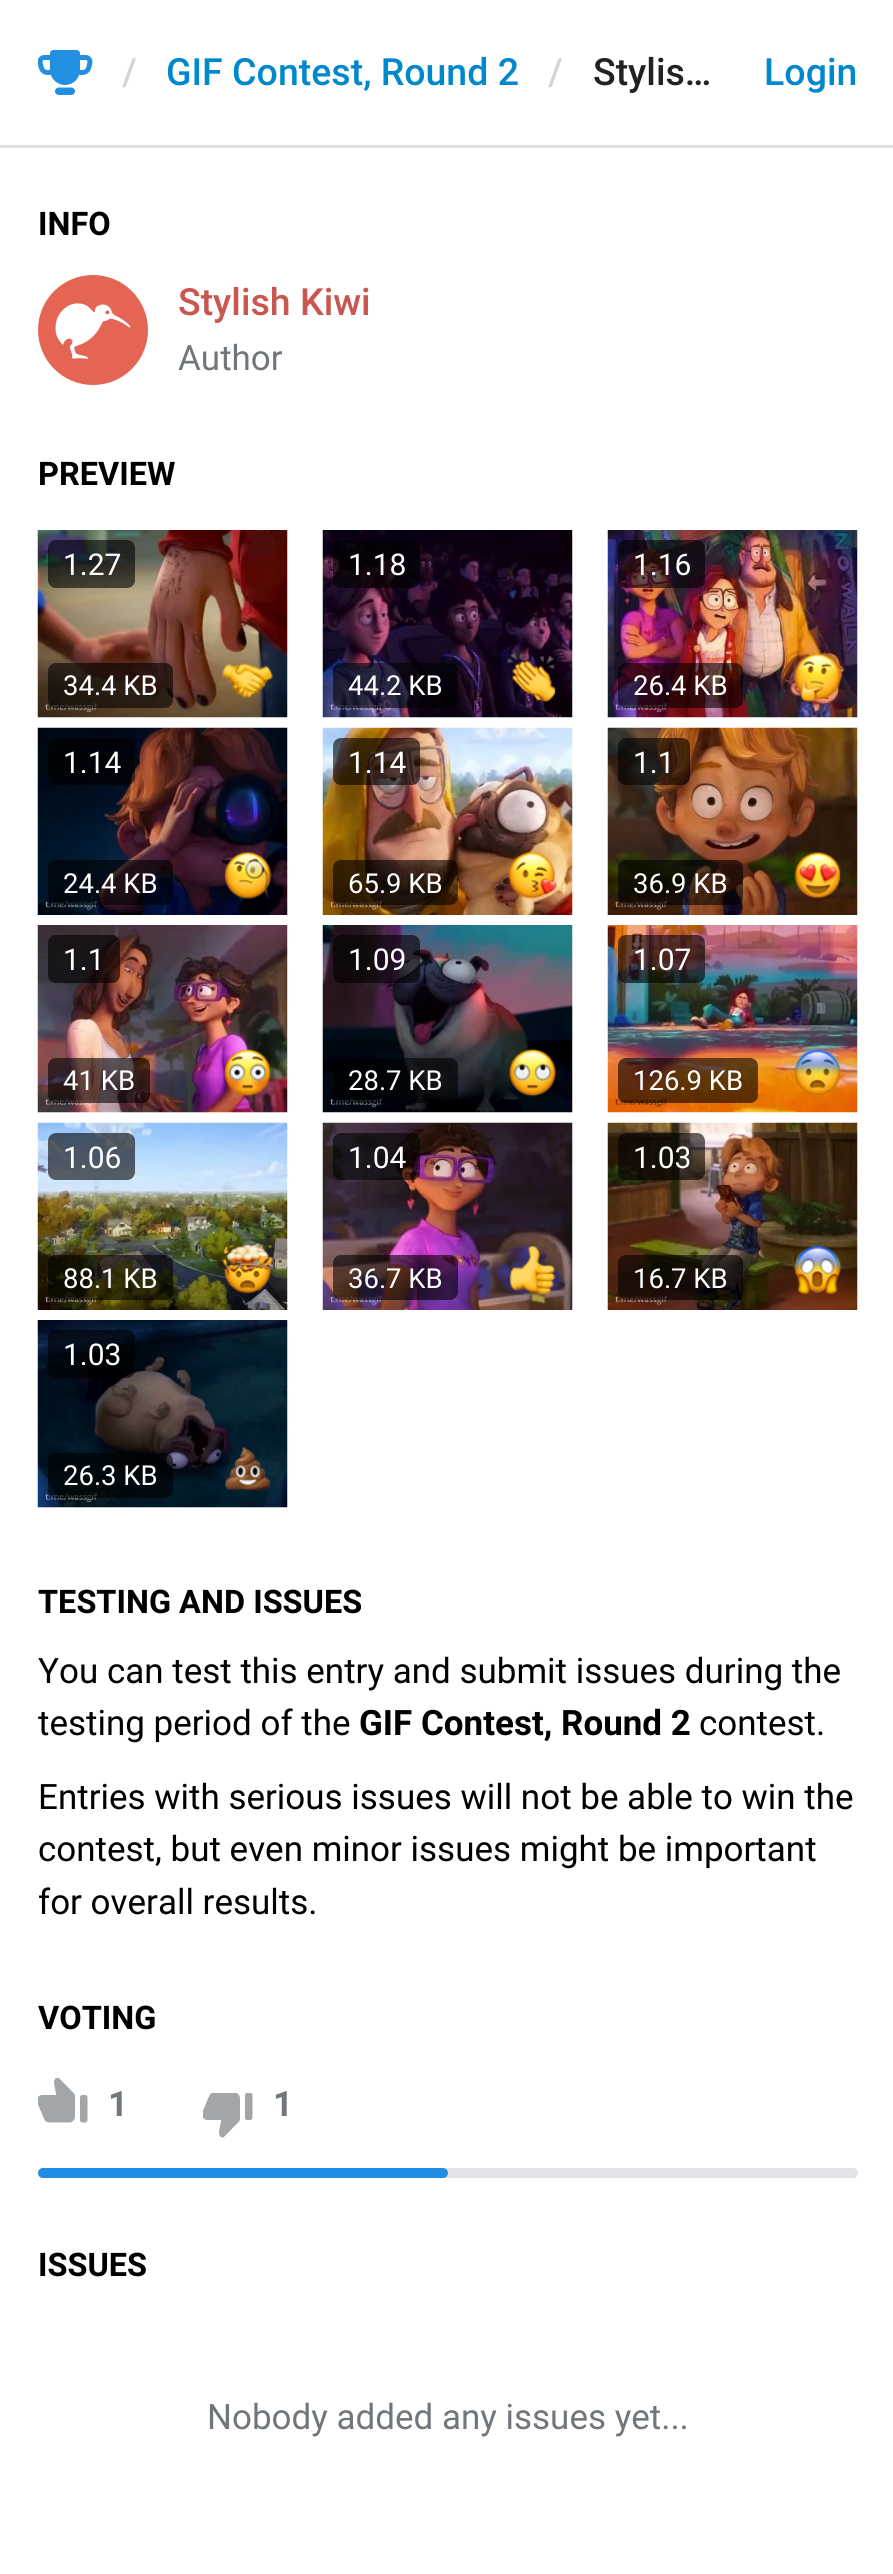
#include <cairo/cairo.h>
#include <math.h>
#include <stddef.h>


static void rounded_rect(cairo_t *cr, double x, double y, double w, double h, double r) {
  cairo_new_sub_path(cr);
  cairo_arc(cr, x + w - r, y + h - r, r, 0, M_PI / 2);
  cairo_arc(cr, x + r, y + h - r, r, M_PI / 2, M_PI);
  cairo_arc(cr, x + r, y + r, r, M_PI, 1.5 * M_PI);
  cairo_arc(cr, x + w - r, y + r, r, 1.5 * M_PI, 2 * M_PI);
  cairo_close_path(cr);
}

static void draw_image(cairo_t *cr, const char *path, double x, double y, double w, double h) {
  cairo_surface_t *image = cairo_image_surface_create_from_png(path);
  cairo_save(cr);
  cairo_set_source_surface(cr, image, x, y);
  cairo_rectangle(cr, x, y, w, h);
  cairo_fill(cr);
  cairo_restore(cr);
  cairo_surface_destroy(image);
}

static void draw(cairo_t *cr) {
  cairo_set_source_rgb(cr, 1, 1, 1);
  cairo_paint(cr);
  cairo_set_source_rgb(cr, 224 / 255.0, 224 / 255.0, 224 / 255.0);
  cairo_rectangle(cr, 0, 145, 893, 3);
  cairo_fill(cr);
  draw_image(cr, "images/1.png", 38, 50, 55, 45);
  cairo_set_source_rgb(cr, 229 / 255.0, 101 / 255.0, 85 / 255.0);
  cairo_arc(cr, 93, 330, 55, 0, 2 * M_PI);
  cairo_fill(cr);
  draw_image(cr, "images/2.png", 55, 303, 75, 56);
  draw_image(cr, "images/3.png", 37, 530, 251, 188);
  cairo_set_source_rgba(cr, 0, 0, 0, 0.6);
  rounded_rect(cr, 48, 540, 87, 48, 8);
  cairo_fill(cr);
  rounded_rect(cr, 48, 663, 125, 45, 8);
  cairo_fill(cr);
  draw_image(cr, "images/4.png", 222, 663, 51, 35);
  draw_image(cr, "images/5.png", 322, 530, 251, 188);
  rounded_rect(cr, 333, 540, 87, 48, 8);
  cairo_fill(cr);
  rounded_rect(cr, 333, 663, 125, 45, 8);
  cairo_fill(cr);
  draw_image(cr, "images/6.png", 507, 652, 49, 50);
  draw_image(cr, "images/7.png", 607, 530, 251, 188);
  rounded_rect(cr, 618, 540, 87, 48, 8);
  cairo_fill(cr);
  rounded_rect(cr, 618, 663, 125, 45, 8);
  cairo_fill(cr);
  draw_image(cr, "images/8.png", 794, 653, 48, 49);
  draw_image(cr, "images/9.png", 37, 727, 251, 188);
  rounded_rect(cr, 48, 738, 87, 47, 8);
  cairo_fill(cr);
  rounded_rect(cr, 48, 860, 125, 45, 8);
  cairo_fill(cr);
  draw_image(cr, "images/10.png", 224, 852, 48, 47);
  draw_image(cr, "images/11.png", 322, 727, 251, 188);
  rounded_rect(cr, 333, 738, 87, 47, 8);
  cairo_fill(cr);
  rounded_rect(cr, 333, 860, 125, 45, 8);
  cairo_fill(cr);
  draw_image(cr, "images/12.png", 508, 852, 49, 47);
  draw_image(cr, "images/13.png", 607, 727, 251, 188);
  rounded_rect(cr, 618, 738, 72, 47, 8);
  cairo_fill(cr);
  rounded_rect(cr, 618, 860, 125, 45, 8);
  cairo_fill(cr);
  draw_image(cr, "images/14.png", 794, 852, 47, 47);
  draw_image(cr, "images/15.png", 37, 925, 251, 188);
  rounded_rect(cr, 48, 935, 72, 48, 8);
  cairo_fill(cr);
  rounded_rect(cr, 48, 1058, 102, 45, 8);
  cairo_fill(cr);
  draw_image(cr, "images/16.png", 223, 1048, 49, 49);
  draw_image(cr, "images/17.png", 322, 925, 251, 188);
  rounded_rect(cr, 333, 935, 87, 48, 8);
  cairo_fill(cr);
  rounded_rect(cr, 333, 1058, 125, 45, 8);
  cairo_fill(cr);
  draw_image(cr, "images/18.png", 508, 1048, 49, 49);
  draw_image(cr, "images/19.png", 607, 925, 251, 188);
  rounded_rect(cr, 618, 935, 87, 48, 8);
  cairo_fill(cr);
  rounded_rect(cr, 618, 1058, 140, 45, 8);
  cairo_fill(cr);
  draw_image(cr, "images/20.png", 793, 1048, 49, 48);
  draw_image(cr, "images/21.png", 37, 1122, 251, 188);
  rounded_rect(cr, 48, 1133, 87, 47, 8);
  cairo_fill(cr);
  rounded_rect(cr, 48, 1255, 125, 45, 8);
  cairo_fill(cr);
  draw_image(cr, "images/22.png", 222, 1245, 51, 49);
  draw_image(cr, "images/23.png", 322, 1122, 251, 188);
  rounded_rect(cr, 333, 1133, 87, 47, 8);
  cairo_fill(cr);
  rounded_rect(cr, 333, 1255, 125, 45, 8);
  cairo_fill(cr);
  draw_image(cr, "images/24.png", 509, 1246, 47, 48);
  draw_image(cr, "images/25.png", 607, 1122, 251, 188);
  rounded_rect(cr, 618, 1133, 87, 47, 8);
  cairo_fill(cr);
  rounded_rect(cr, 618, 1255, 125, 45, 8);
  cairo_fill(cr);
  draw_image(cr, "images/26.png", 793, 1245, 49, 50);
  draw_image(cr, "images/27.png", 37, 1320, 251, 188);
  rounded_rect(cr, 48, 1330, 87, 48, 8);
  cairo_fill(cr);
  rounded_rect(cr, 48, 1453, 125, 45, 8);
  cairo_fill(cr);
  draw_image(cr, "images/28.png", 225, 1447, 46, 44);
  draw_image(cr, "images/29.png", 38, 2078, 50, 45);
  draw_image(cr, "images/30.png", 203, 2093, 50, 45);
  cairo_set_source_rgb(cr, 225 / 255.0, 227 / 255.0, 230 / 255.0);
  rounded_rect(cr, 38, 2168, 820, 10, 5);
  cairo_fill(cr);
  cairo_set_source_rgb(cr, 32 / 255.0, 143 / 255.0, 227 / 255.0);
  rounded_rect(cr, 38, 2168, 410, 10, 5);
  cairo_fill(cr);
  cairo_select_font_face(cr, "Roboto Medium", CAIRO_FONT_SLANT_NORMAL, CAIRO_FONT_WEIGHT_NORMAL);
  cairo_set_font_size(cr, 37.5);
  cairo_set_source_rgb(cr, 212 / 255.0, 212 / 255.0, 212 / 255.0);
  cairo_move_to(cr, 122, 85);
  cairo_show_text(cr, "/");
  cairo_set_source_rgb(cr, 0, 136 / 255.0, 204 / 255.0);
  cairo_move_to(cr, 166, 85);
  cairo_show_text(cr, "GIF Contest, Round 2");
  cairo_set_source_rgb(cr, 212 / 255.0, 212 / 255.0, 212 / 255.0);
  cairo_move_to(cr, 548, 85);
  cairo_show_text(cr, "/");
  cairo_set_source_rgb(cr, 34 / 255.0, 34 / 255.0, 34 / 255.0);
  cairo_move_to(cr, 593, 85);
  cairo_show_text(cr, "Stylis…");
  cairo_set_source_rgb(cr, 0, 136 / 255.0, 204 / 255.0);
  cairo_move_to(cr, 764, 85);
  cairo_show_text(cr, "Login");
  cairo_select_font_face(cr, "Roboto", CAIRO_FONT_SLANT_NORMAL, CAIRO_FONT_WEIGHT_BOLD);
  cairo_set_font_size(cr, 32.5);
  cairo_set_source_rgb(cr, 0, 0, 0);
  cairo_move_to(cr, 38, 235);
  cairo_show_text(cr, "INFO");
  cairo_select_font_face(cr, "Roboto Medium", CAIRO_FONT_SLANT_NORMAL, CAIRO_FONT_WEIGHT_NORMAL);
  cairo_set_font_size(cr, 37.5);
  cairo_set_source_rgb(cr, 202 / 255.0, 86 / 255.0, 80 / 255.0);
  cairo_move_to(cr, 178, 315);
  cairo_show_text(cr, "Stylish Kiwi");
  cairo_select_font_face(cr, "Roboto", CAIRO_FONT_SLANT_NORMAL, CAIRO_FONT_WEIGHT_NORMAL);
  cairo_set_font_size(cr, 35);
  cairo_set_source_rgb(cr, 112 / 255.0, 118 / 255.0, 123 / 255.0);
  cairo_move_to(cr, 178, 370);
  cairo_show_text(cr, "Author");
  cairo_select_font_face(cr, "Roboto", CAIRO_FONT_SLANT_NORMAL, CAIRO_FONT_WEIGHT_BOLD);
  cairo_set_font_size(cr, 32.5);
  cairo_set_source_rgb(cr, 0, 0, 0);
  cairo_move_to(cr, 38, 485);
  cairo_show_text(cr, "PREVIEW");
  cairo_select_font_face(cr, "Roboto", CAIRO_FONT_SLANT_NORMAL, CAIRO_FONT_WEIGHT_NORMAL);
  cairo_set_font_size(cr, 30);
  cairo_set_source_rgb(cr, 1, 1, 1);
  cairo_move_to(cr, 63, 575);
  cairo_show_text(cr, "1.27");
  cairo_set_font_size(cr, 27.5);
  cairo_move_to(cr, 63, 695);
  cairo_show_text(cr, "34.4 KB");
  cairo_set_font_size(cr, 30);
  cairo_move_to(cr, 348, 575);
  cairo_show_text(cr, "1.18");
  cairo_set_font_size(cr, 27.5);
  cairo_move_to(cr, 348, 695);
  cairo_show_text(cr, "44.2 KB");
  cairo_set_font_size(cr, 30);
  cairo_move_to(cr, 633, 575);
  cairo_show_text(cr, "1.16");
  cairo_set_font_size(cr, 27.5);
  cairo_move_to(cr, 633, 695);
  cairo_show_text(cr, "26.4 KB");
  cairo_set_font_size(cr, 30);
  cairo_move_to(cr, 63, 773);
  cairo_show_text(cr, "1.14");
  cairo_set_font_size(cr, 27.5);
  cairo_move_to(cr, 63, 893);
  cairo_show_text(cr, "24.4 KB");
  cairo_set_font_size(cr, 30);
  cairo_move_to(cr, 348, 773);
  cairo_show_text(cr, "1.14");
  cairo_set_font_size(cr, 27.5);
  cairo_move_to(cr, 348, 893);
  cairo_show_text(cr, "65.9 KB");
  cairo_set_font_size(cr, 30);
  cairo_move_to(cr, 633, 773);
  cairo_show_text(cr, "1.1");
  cairo_set_font_size(cr, 27.5);
  cairo_move_to(cr, 633, 893);
  cairo_show_text(cr, "36.9 KB");
  cairo_set_font_size(cr, 30);
  cairo_move_to(cr, 63, 970);
  cairo_show_text(cr, "1.1");
  cairo_set_font_size(cr, 27.5);
  cairo_move_to(cr, 63, 1090);
  cairo_show_text(cr, "41 KB");
  cairo_set_font_size(cr, 30);
  cairo_move_to(cr, 348, 970);
  cairo_show_text(cr, "1.09");
  cairo_set_font_size(cr, 27.5);
  cairo_move_to(cr, 348, 1090);
  cairo_show_text(cr, "28.7 KB");
  cairo_set_font_size(cr, 30);
  cairo_move_to(cr, 633, 970);
  cairo_show_text(cr, "1.07");
  cairo_set_font_size(cr, 27.5);
  cairo_move_to(cr, 633, 1090);
  cairo_show_text(cr, "126.9 KB");
  cairo_set_font_size(cr, 30);
  cairo_move_to(cr, 63, 1168);
  cairo_show_text(cr, "1.06");
  cairo_set_font_size(cr, 27.5);
  cairo_move_to(cr, 63, 1288);
  cairo_show_text(cr, "88.1 KB");
  cairo_set_font_size(cr, 30);
  cairo_move_to(cr, 348, 1168);
  cairo_show_text(cr, "1.04");
  cairo_set_font_size(cr, 27.5);
  cairo_move_to(cr, 348, 1288);
  cairo_show_text(cr, "36.7 KB");
  cairo_set_font_size(cr, 30);
  cairo_move_to(cr, 633, 1168);
  cairo_show_text(cr, "1.03");
  cairo_set_font_size(cr, 27.5);
  cairo_move_to(cr, 633, 1288);
  cairo_show_text(cr, "16.7 KB");
  cairo_set_font_size(cr, 30);
  cairo_move_to(cr, 63, 1365);
  cairo_show_text(cr, "1.03");
  cairo_set_font_size(cr, 27.5);
  cairo_move_to(cr, 63, 1485);
  cairo_show_text(cr, "26.3 KB");
  cairo_select_font_face(cr, "Roboto", CAIRO_FONT_SLANT_NORMAL, CAIRO_FONT_WEIGHT_BOLD);
  cairo_set_font_size(cr, 32.5);
  cairo_set_source_rgb(cr, 0, 0, 0);
  cairo_move_to(cr, 38, 1613);
  cairo_show_text(cr, "TESTING AND ISSUES");
  cairo_select_font_face(cr, "Roboto", CAIRO_FONT_SLANT_NORMAL, CAIRO_FONT_WEIGHT_NORMAL);
  cairo_set_font_size(cr, 35);
  cairo_move_to(cr, 38, 1683);
  cairo_show_text(cr, "You can test this entry and submit issues during the");
  cairo_move_to(cr, 38, 1735);
  cairo_show_text(cr, "testing period of the");
  cairo_select_font_face(cr, "Roboto", CAIRO_FONT_SLANT_NORMAL, CAIRO_FONT_WEIGHT_BOLD);
  cairo_move_to(cr, 359, 1735);
  cairo_show_text(cr, "GIF Contest, Round 2");
  cairo_select_font_face(cr, "Roboto", CAIRO_FONT_SLANT_NORMAL, CAIRO_FONT_WEIGHT_NORMAL);
  cairo_move_to(cr, 699, 1735);
  cairo_show_text(cr, "contest.");
  cairo_move_to(cr, 38, 1809);
  cairo_show_text(cr, "Entries with serious issues will not be able to win the");
  cairo_move_to(cr, 38, 1861);
  cairo_show_text(cr, "contest, but even minor issues might be important");
  cairo_move_to(cr, 38, 1914);
  cairo_show_text(cr, "for overall results.");
  cairo_select_font_face(cr, "Roboto", CAIRO_FONT_SLANT_NORMAL, CAIRO_FONT_WEIGHT_BOLD);
  cairo_set_font_size(cr, 32.5);
  cairo_move_to(cr, 38, 2029);
  cairo_show_text(cr, "VOTING");
  cairo_set_font_size(cr, 35);
  cairo_set_source_rgb(cr, 112 / 255.0, 118 / 255.0, 123 / 255.0);
  cairo_move_to(cr, 108, 2116);
  cairo_show_text(cr, "1");
  cairo_move_to(cr, 273, 2116);
  cairo_show_text(cr, "1");
  cairo_set_font_size(cr, 32.5);
  cairo_set_source_rgb(cr, 0, 0, 0);
  cairo_move_to(cr, 38, 2276);
  cairo_show_text(cr, "ISSUES");
  cairo_select_font_face(cr, "Roboto", CAIRO_FONT_SLANT_NORMAL, CAIRO_FONT_WEIGHT_NORMAL);
  cairo_set_font_size(cr, 35);
  cairo_set_source_rgb(cr, 112 / 255.0, 118 / 255.0, 123 / 255.0);
  cairo_move_to(cr, 207, 2429);
  cairo_show_text(cr, "Nobody added any issues yet...");
}

int main(void) {
  cairo_surface_t *surface = cairo_image_surface_create(CAIRO_FORMAT_RGB24, 893, 2574);
  cairo_t *cr = cairo_create(surface);
  cairo_font_options_t *options = cairo_font_options_create();
  cairo_font_options_set_hint_metrics(options, CAIRO_HINT_METRICS_OFF);
  cairo_font_options_set_hint_style(options, CAIRO_HINT_STYLE_NONE);
  cairo_set_font_options(cr, options);
  cairo_set_miter_limit(cr, 4);
  draw(cr);
  cairo_surface_write_to_png(surface, "out.png");
  cairo_font_options_destroy(options);
  cairo_destroy(cr);
  cairo_surface_destroy(surface);
  return 0;
}
